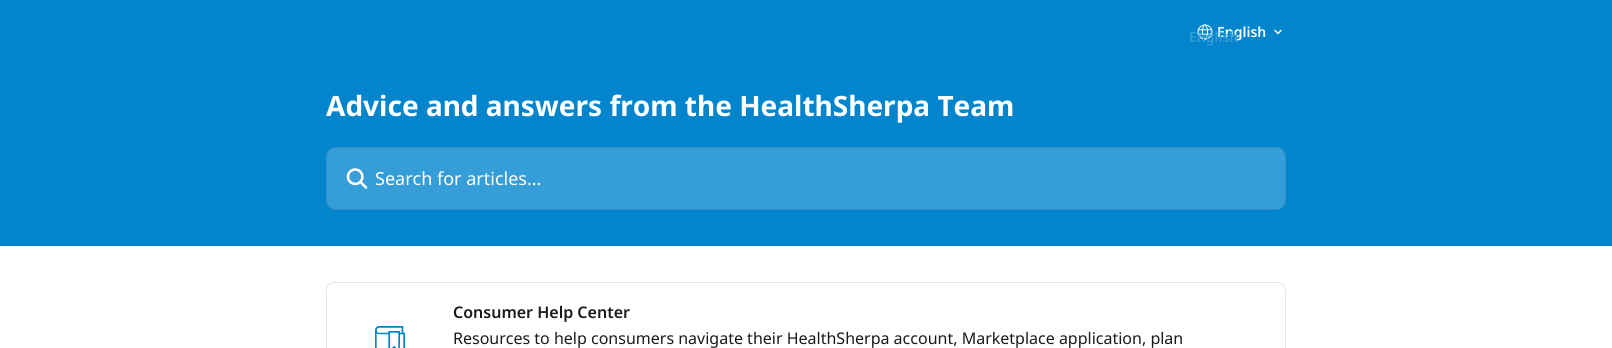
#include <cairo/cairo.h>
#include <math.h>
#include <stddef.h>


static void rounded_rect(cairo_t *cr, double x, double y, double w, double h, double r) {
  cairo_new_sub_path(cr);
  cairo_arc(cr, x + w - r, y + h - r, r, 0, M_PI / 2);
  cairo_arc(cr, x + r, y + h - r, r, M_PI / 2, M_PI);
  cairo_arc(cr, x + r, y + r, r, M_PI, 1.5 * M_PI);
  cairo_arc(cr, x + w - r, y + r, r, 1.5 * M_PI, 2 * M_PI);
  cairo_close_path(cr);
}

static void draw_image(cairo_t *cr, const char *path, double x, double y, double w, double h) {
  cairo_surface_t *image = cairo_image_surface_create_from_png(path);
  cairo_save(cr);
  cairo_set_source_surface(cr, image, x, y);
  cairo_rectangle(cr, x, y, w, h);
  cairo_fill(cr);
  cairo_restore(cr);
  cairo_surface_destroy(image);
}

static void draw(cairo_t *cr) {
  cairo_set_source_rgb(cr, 1, 1, 1);
  cairo_paint(cr);
  cairo_set_source_rgb(cr, 3 / 255.0, 133 / 255.0, 205 / 255.0);
  cairo_rectangle(cr, 0, 0, 1612, 246);
  cairo_fill(cr);
  draw_image(cr, "images/1.png", 1197, 24, 16, 16);
  cairo_new_path(cr);
  cairo_move_to(cr, 1275, 30.5);
  cairo_line_to(cr, 1278, 33.5);
  cairo_line_to(cr, 1281, 30.5);
  cairo_set_source_rgb(cr, 1, 1, 1);
  cairo_set_line_width(cr, 1.5);
  cairo_set_line_cap(cr, CAIRO_LINE_CAP_ROUND);
  cairo_set_line_join(cr, CAIRO_LINE_JOIN_ROUND);
  cairo_stroke(cr);
  cairo_set_source_rgba(cr, 1, 1, 1, 0.2);
  rounded_rect(cr, 326, 147, 960, 63, 10);
  cairo_fill(cr);
  rounded_rect(cr, 326.5, 147.5, 959, 62, 9.5);
  cairo_set_source_rgba(cr, 0, 0, 0, 0.08);
  cairo_set_line_width(cr, 1);
  cairo_set_line_cap(cr, CAIRO_LINE_CAP_BUTT);
  cairo_set_line_join(cr, CAIRO_LINE_JOIN_MITER);
  cairo_stroke(cr);
  draw_image(cr, "images/2.png", 346, 168, 22, 21);
  rounded_rect(cr, 326.5, 282.5, 959, 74, 7.5);
  cairo_set_source_rgb(cr, 230 / 255.0, 230 / 255.0, 230 / 255.0);
  cairo_stroke(cr);
  draw_image(cr, "images/3.png", 375, 326, 30, 22);
  cairo_select_font_face(cr, "Noto Sans SemiBold", CAIRO_FONT_SLANT_NORMAL, CAIRO_FONT_WEIGHT_NORMAL);
  cairo_set_font_size(cr, 14);
  cairo_set_source_rgb(cr, 1, 1, 1);
  cairo_move_to(cr, 1217, 37);
  cairo_show_text(cr, "English");
  cairo_set_source_rgb(cr, 50 / 255.0, 156 / 255.0, 214 / 255.0);
  cairo_move_to(cr, 1189, 42);
  cairo_show_text(cr, "English");
  cairo_select_font_face(cr, "Noto Sans", CAIRO_FONT_SLANT_NORMAL, CAIRO_FONT_WEIGHT_BOLD);
  cairo_set_font_size(cr, 28);
  cairo_set_source_rgb(cr, 1, 1, 1);
  cairo_move_to(cr, 326, 116);
  cairo_show_text(cr, "Advice and answers from the HealthSherpa Team");
  cairo_select_font_face(cr, "Noto Sans", CAIRO_FONT_SLANT_NORMAL, CAIRO_FONT_WEIGHT_NORMAL);
  cairo_set_font_size(cr, 18);
  cairo_move_to(cr, 375, 185);
  cairo_show_text(cr, "Search for articles...");
  cairo_select_font_face(cr, "Noto Sans SemiBold", CAIRO_FONT_SLANT_NORMAL, CAIRO_FONT_WEIGHT_NORMAL);
  cairo_set_font_size(cr, 16);
  cairo_set_source_rgb(cr, 26 / 255.0, 26 / 255.0, 26 / 255.0);
  cairo_move_to(cr, 453, 318);
  cairo_show_text(cr, "Consumer Help Center");
  cairo_select_font_face(cr, "Noto Sans", CAIRO_FONT_SLANT_NORMAL, CAIRO_FONT_WEIGHT_NORMAL);
  cairo_move_to(cr, 453, 344);
  cairo_show_text(cr, "Resources to help consumers navigate their HealthSherpa account, Marketplace application, plan");
}

int main(void) {
  cairo_surface_t *surface = cairo_image_surface_create(CAIRO_FORMAT_RGB24, 1612, 348);
  cairo_t *cr = cairo_create(surface);
  cairo_font_options_t *options = cairo_font_options_create();
  cairo_font_options_set_hint_metrics(options, CAIRO_HINT_METRICS_OFF);
  cairo_font_options_set_hint_style(options, CAIRO_HINT_STYLE_NONE);
  cairo_set_font_options(cr, options);
  cairo_set_miter_limit(cr, 4);
  draw(cr);
  cairo_surface_write_to_png(surface, "out.png");
  cairo_font_options_destroy(options);
  cairo_destroy(cr);
  cairo_surface_destroy(surface);
  return 0;
}
